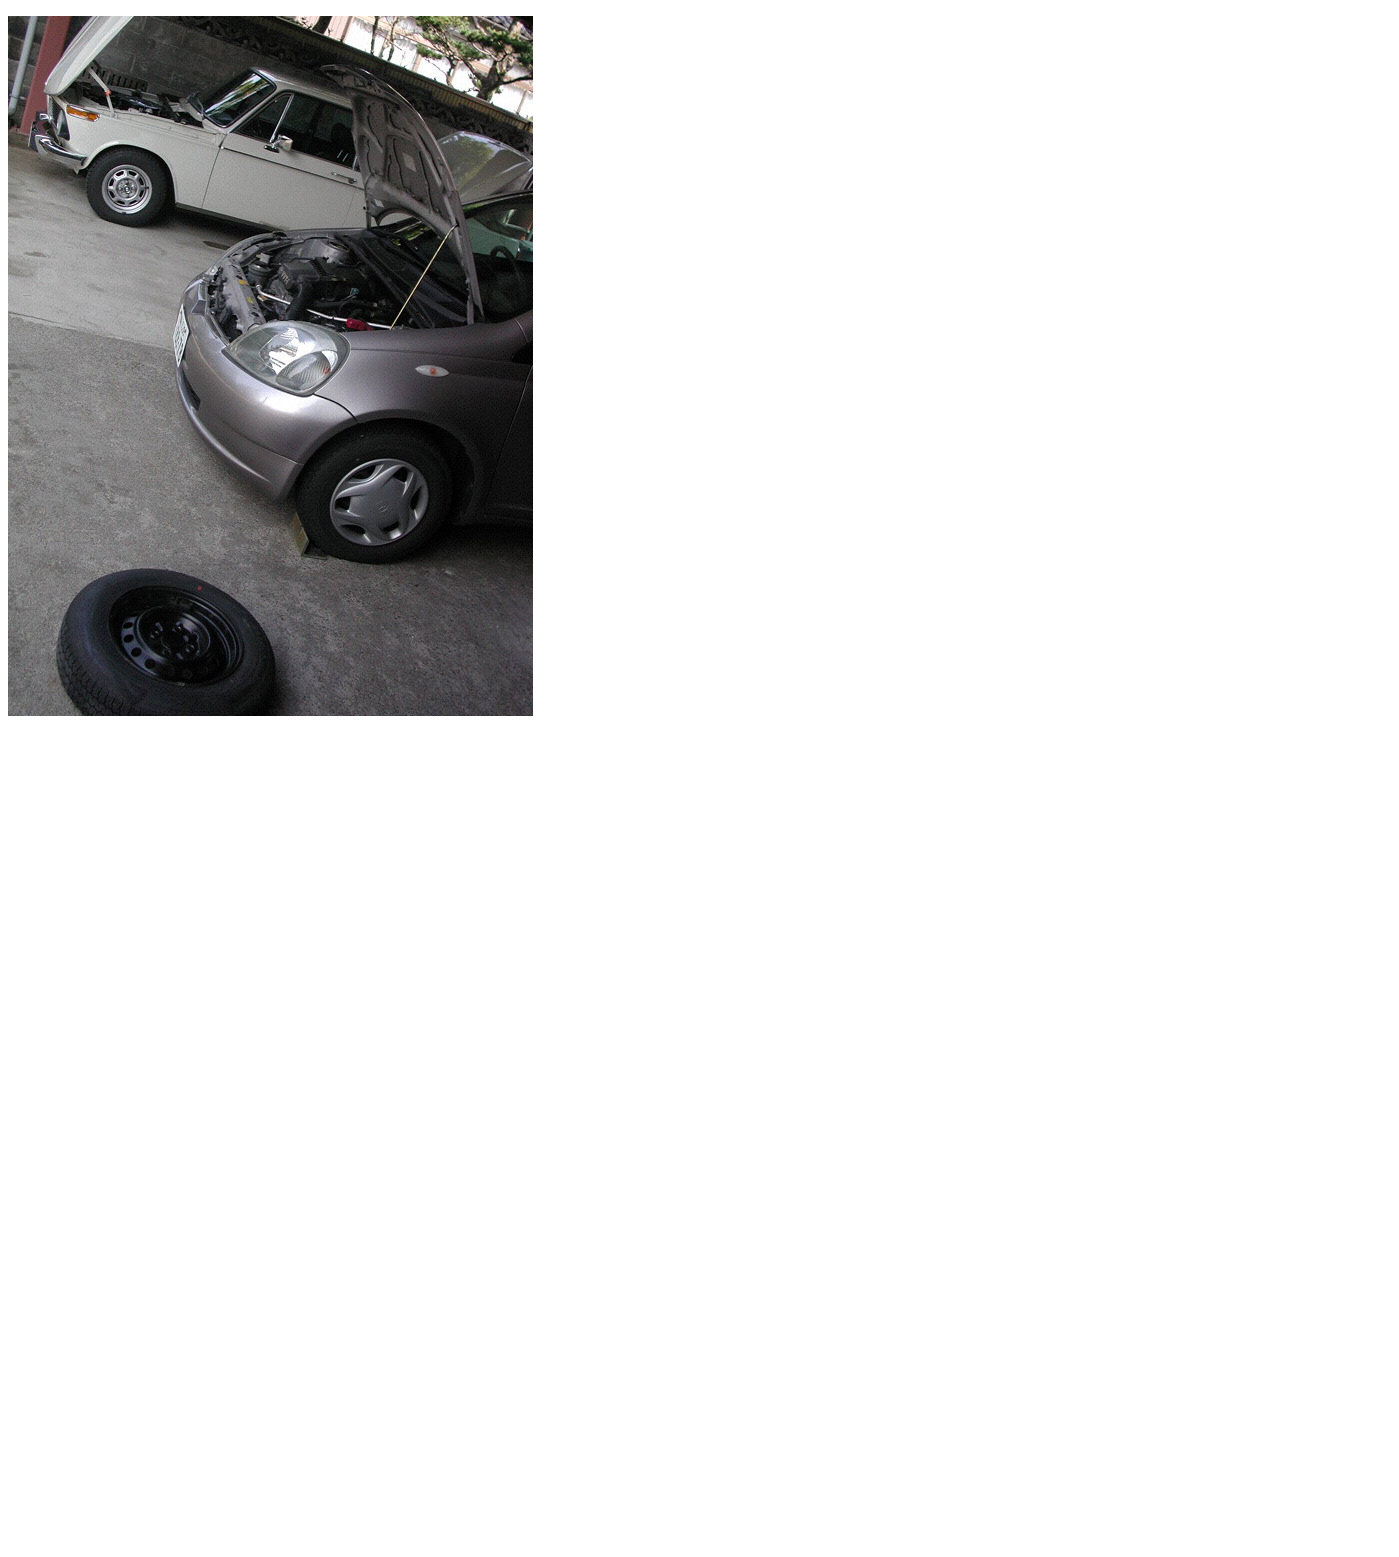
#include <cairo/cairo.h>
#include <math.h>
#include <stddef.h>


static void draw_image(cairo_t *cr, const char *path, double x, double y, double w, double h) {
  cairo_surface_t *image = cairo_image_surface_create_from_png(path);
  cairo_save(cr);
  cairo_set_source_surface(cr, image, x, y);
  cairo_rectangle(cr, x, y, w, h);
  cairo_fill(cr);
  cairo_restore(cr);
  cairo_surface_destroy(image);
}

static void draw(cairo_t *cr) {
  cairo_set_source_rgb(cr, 1, 1, 1);
  cairo_paint(cr);
  draw_image(cr, "images/1.png", 8, 16, 525, 700);
}

int main(void) {
  cairo_surface_t *surface = cairo_image_surface_create(CAIRO_FORMAT_RGB24, 1399, 1557);
  cairo_t *cr = cairo_create(surface);
  cairo_font_options_t *options = cairo_font_options_create();
  cairo_font_options_set_hint_metrics(options, CAIRO_HINT_METRICS_OFF);
  cairo_font_options_set_hint_style(options, CAIRO_HINT_STYLE_NONE);
  cairo_set_font_options(cr, options);
  cairo_set_miter_limit(cr, 4);
  draw(cr);
  cairo_surface_write_to_png(surface, "out.png");
  cairo_font_options_destroy(options);
  cairo_destroy(cr);
  cairo_surface_destroy(surface);
  return 0;
}
